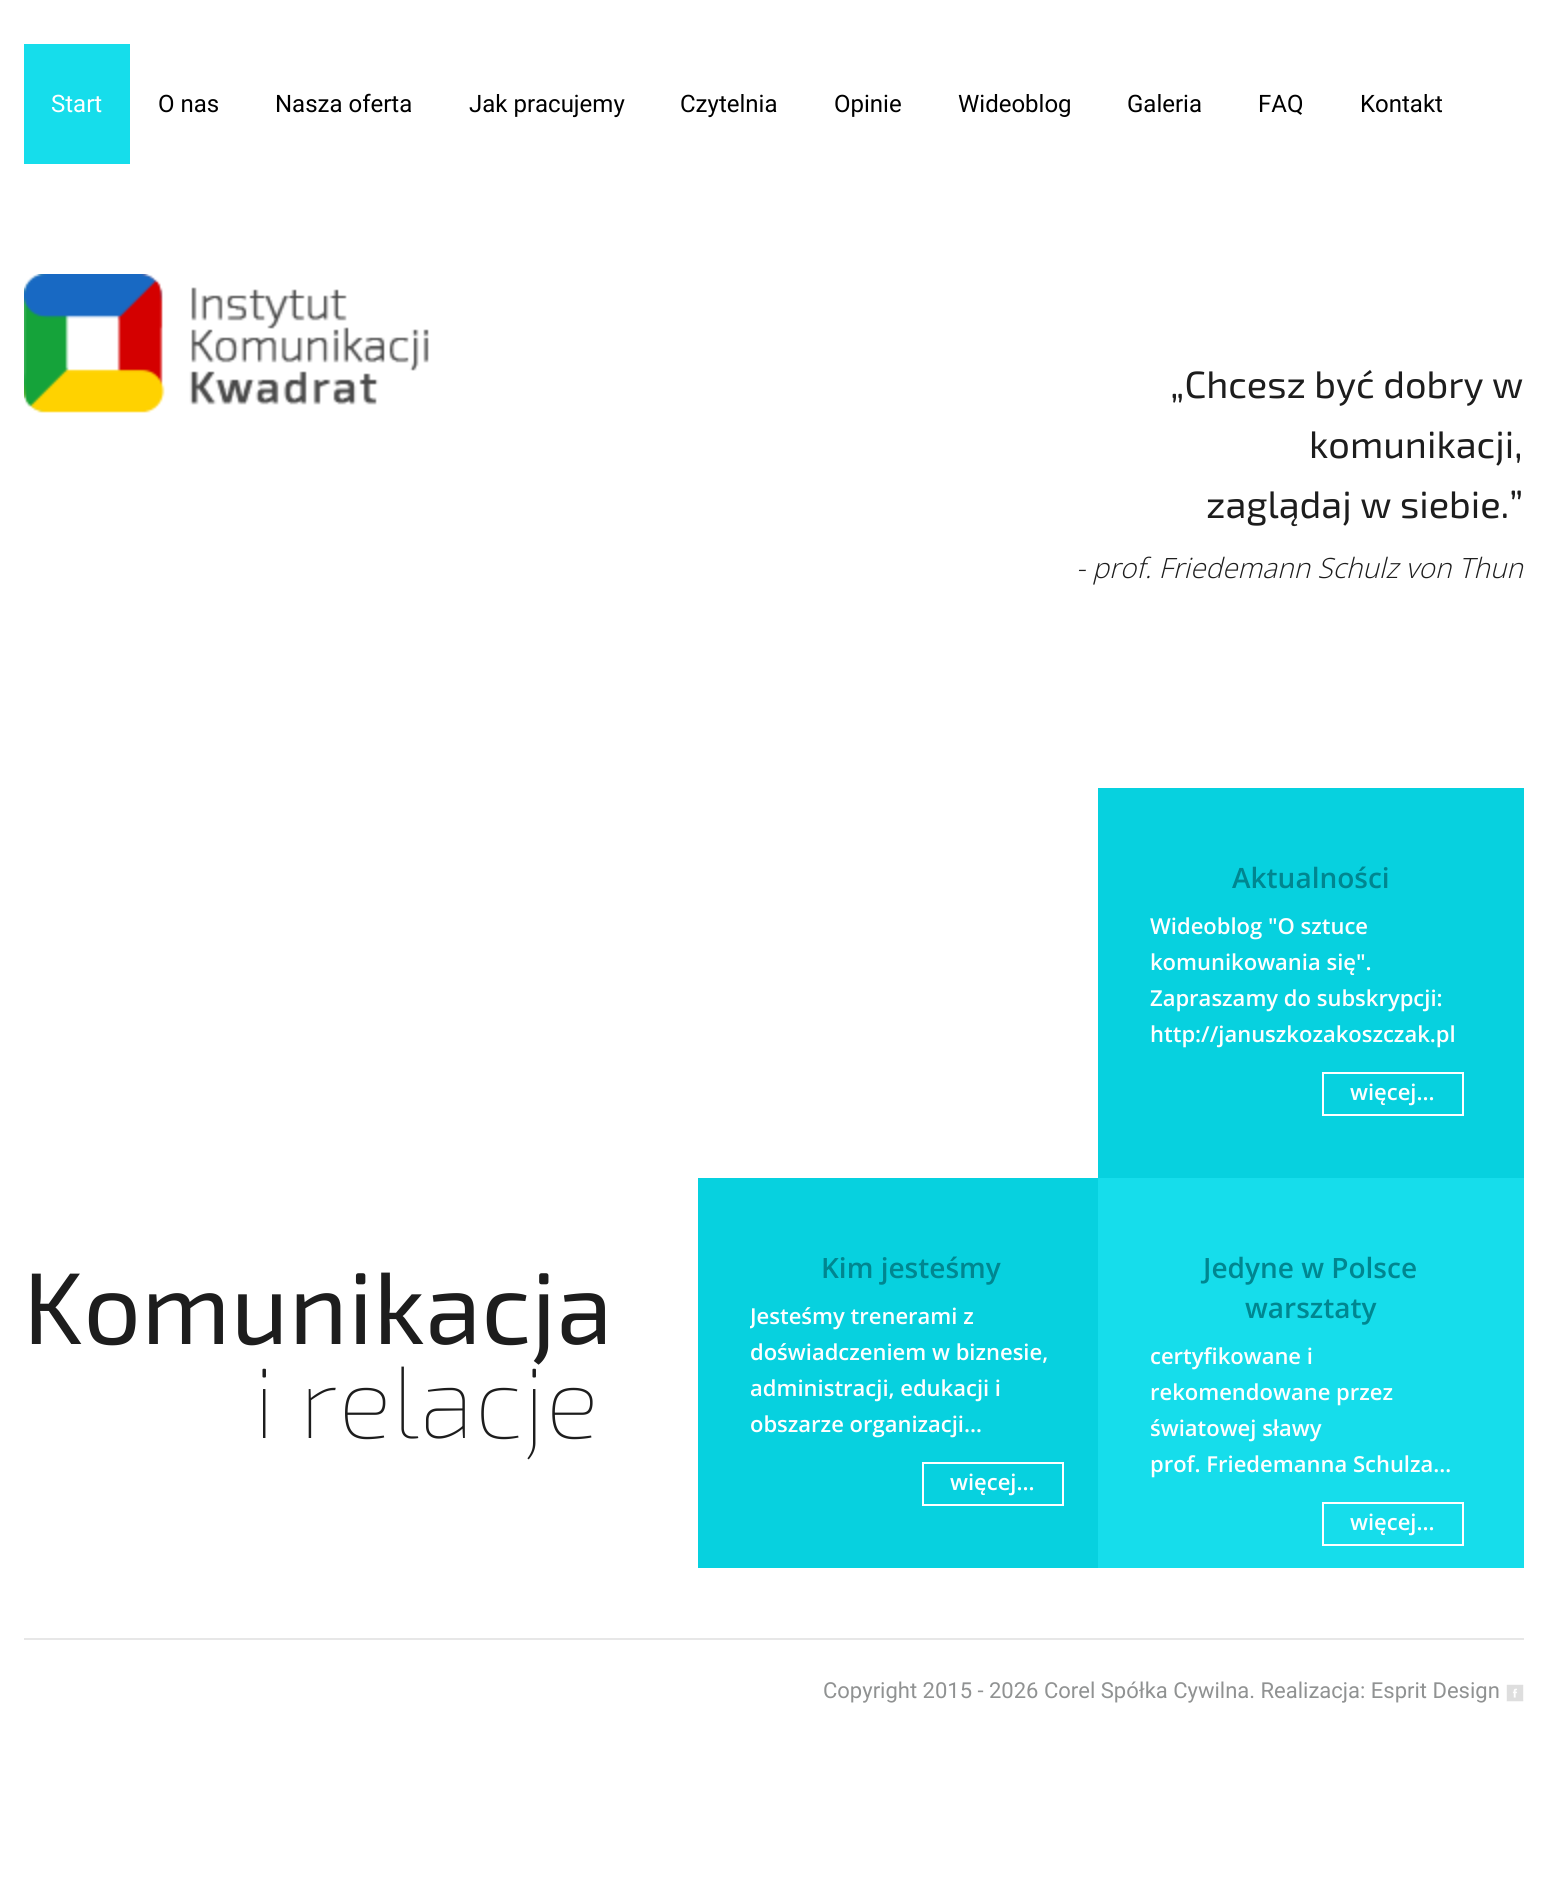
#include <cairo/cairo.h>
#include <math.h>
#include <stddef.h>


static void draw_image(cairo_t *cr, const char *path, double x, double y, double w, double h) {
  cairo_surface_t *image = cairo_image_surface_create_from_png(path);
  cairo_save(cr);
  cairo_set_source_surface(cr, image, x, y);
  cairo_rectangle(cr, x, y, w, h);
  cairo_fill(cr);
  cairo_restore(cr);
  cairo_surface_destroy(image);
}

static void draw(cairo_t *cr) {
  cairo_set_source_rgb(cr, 1, 1, 1);
  cairo_paint(cr);
  cairo_set_source_rgb(cr, 22 / 255.0, 221 / 255.0, 235 / 255.0);
  cairo_rectangle(cr, 24, 44, 106, 120);
  cairo_fill(cr);
  draw_image(cr, "images/1.png", 24, 274, 405, 139);
  cairo_set_source_rgb(cr, 7 / 255.0, 209 / 255.0, 223 / 255.0);
  cairo_rectangle(cr, 1098, 788, 426, 390);
  cairo_fill(cr);
  cairo_rectangle(cr, 1323, 1073, 140, 42);
  cairo_set_source_rgb(cr, 1, 1, 1);
  cairo_stroke(cr);
  cairo_set_source_rgb(cr, 7 / 255.0, 209 / 255.0, 223 / 255.0);
  cairo_rectangle(cr, 698, 1178, 400, 390);
  cairo_fill(cr);
  cairo_rectangle(cr, 923, 1463, 140, 42);
  cairo_set_source_rgb(cr, 1, 1, 1);
  cairo_stroke(cr);
  cairo_set_source_rgb(cr, 22 / 255.0, 221 / 255.0, 235 / 255.0);
  cairo_rectangle(cr, 1098, 1178, 426, 390);
  cairo_fill(cr);
  cairo_rectangle(cr, 1323, 1503, 140, 42);
  cairo_set_source_rgb(cr, 1, 1, 1);
  cairo_stroke(cr);
  cairo_set_source_rgb(cr, 231 / 255.0, 231 / 255.0, 231 / 255.0);
  cairo_rectangle(cr, 24, 1638, 1500, 2);
  cairo_fill(cr);
  draw_image(cr, "images/2.png", 1506, 1684, 18, 18);
  cairo_select_font_face(cr, "Roboto", CAIRO_FONT_SLANT_NORMAL, CAIRO_FONT_WEIGHT_NORMAL);
  cairo_set_font_size(cr, 24);
  cairo_set_source_rgb(cr, 1, 1, 1);
  cairo_move_to(cr, 51, 112);
  cairo_show_text(cr, "Start");
  cairo_set_source_rgb(cr, 0, 0, 0);
  cairo_move_to(cr, 158, 112);
  cairo_show_text(cr, "O nas");
  cairo_move_to(cr, 275, 112);
  cairo_show_text(cr, "Nasza oferta");
  cairo_move_to(cr, 469, 112);
  cairo_show_text(cr, "Jak pracujemy");
  cairo_move_to(cr, 680, 112);
  cairo_show_text(cr, "Czytelnia");
  cairo_move_to(cr, 834, 112);
  cairo_show_text(cr, "Opinie");
  cairo_move_to(cr, 958, 112);
  cairo_show_text(cr, "Wideoblog");
  cairo_move_to(cr, 1127, 112);
  cairo_show_text(cr, "Galeria");
  cairo_move_to(cr, 1258, 112);
  cairo_show_text(cr, "FAQ");
  cairo_move_to(cr, 1360, 112);
  cairo_show_text(cr, "Kontakt");
  cairo_select_font_face(cr, "Exo 2", CAIRO_FONT_SLANT_NORMAL, CAIRO_FONT_WEIGHT_NORMAL);
  cairo_set_font_size(cr, 38);
  cairo_set_source_rgb(cr, 29 / 255.0, 29 / 255.0, 29 / 255.0);
  cairo_move_to(cr, 1170, 398);
  cairo_show_text(cr, "„Chcesz być dobry w");
  cairo_move_to(cr, 1309, 458);
  cairo_show_text(cr, "komunikacji,");
  cairo_move_to(cr, 1206, 518);
  cairo_show_text(cr, "zaglądaj w siebie.”");
  cairo_select_font_face(cr, "Open Sans Light", CAIRO_FONT_SLANT_ITALIC, CAIRO_FONT_WEIGHT_NORMAL);
  cairo_set_font_size(cr, 28);
  cairo_move_to(cr, 1076, 578);
  cairo_show_text(cr, "- prof. Friedemann Schulz von Thun");
  cairo_select_font_face(cr, "Open Sans SemiBold", CAIRO_FONT_SLANT_NORMAL, CAIRO_FONT_WEIGHT_NORMAL);
  cairo_set_source_rgb(cr, 0, 134 / 255.0, 144 / 255.0);
  cairo_move_to(cr, 1232, 888);
  cairo_show_text(cr, "Aktualności");
  cairo_set_font_size(cr, 22);
  cairo_set_source_rgb(cr, 1, 1, 1);
  cairo_move_to(cr, 1150, 934);
  cairo_show_text(cr, "Wideoblog \"O sztuce");
  cairo_move_to(cr, 1150, 970);
  cairo_show_text(cr, "komunikowania się\".");
  cairo_move_to(cr, 1150, 1006);
  cairo_show_text(cr, "Zapraszamy do subskrypcji:");
  cairo_move_to(cr, 1150, 1042);
  cairo_show_text(cr, "http://januszkozakoszczak.pl");
  cairo_move_to(cr, 1350, 1100);
  cairo_show_text(cr, "więcej...");
  cairo_select_font_face(cr, "Exo 2", CAIRO_FONT_SLANT_NORMAL, CAIRO_FONT_WEIGHT_NORMAL);
  cairo_set_font_size(cr, 102);
  cairo_set_source_rgb(cr, 29 / 255.0, 29 / 255.0, 29 / 255.0);
  cairo_move_to(cr, 23, 1344);
  cairo_show_text(cr, "Komunikacja");
  cairo_select_font_face(cr, "Exo 2 Thin", CAIRO_FONT_SLANT_NORMAL, CAIRO_FONT_WEIGHT_NORMAL);
  cairo_move_to(cr, 253, 1438);
  cairo_show_text(cr, "i relacje");
  cairo_select_font_face(cr, "Open Sans SemiBold", CAIRO_FONT_SLANT_NORMAL, CAIRO_FONT_WEIGHT_NORMAL);
  cairo_set_font_size(cr, 28);
  cairo_set_source_rgb(cr, 0, 134 / 255.0, 144 / 255.0);
  cairo_move_to(cr, 821, 1278);
  cairo_show_text(cr, "Kim jesteśmy");
  cairo_save(cr);
  cairo_rectangle(cr, 750, 1288, 322, 164);
  cairo_clip(cr);
  cairo_set_font_size(cr, 22);
  cairo_set_source_rgb(cr, 1, 1, 1);
  cairo_move_to(cr, 750, 1324);
  cairo_show_text(cr, "Jesteśmy trenerami z");
  cairo_restore(cr);
  cairo_set_font_size(cr, 22);
  cairo_set_source_rgb(cr, 1, 1, 1);
  cairo_move_to(cr, 750, 1360);
  cairo_show_text(cr, "doświadczeniem w biznesie,");
  cairo_move_to(cr, 750, 1396);
  cairo_show_text(cr, "administracji, edukacji i");
  cairo_move_to(cr, 750, 1432);
  cairo_show_text(cr, "obszarze organizacji…");
  cairo_move_to(cr, 950, 1490);
  cairo_show_text(cr, "więcej...");
  cairo_set_font_size(cr, 28);
  cairo_set_source_rgb(cr, 0, 134 / 255.0, 144 / 255.0);
  cairo_move_to(cr, 1203, 1278);
  cairo_show_text(cr, "Jedyne w Polsce");
  cairo_move_to(cr, 1245, 1318);
  cairo_show_text(cr, "warsztaty");
  cairo_set_font_size(cr, 22);
  cairo_set_source_rgb(cr, 1, 1, 1);
  cairo_move_to(cr, 1150, 1364);
  cairo_show_text(cr, "certyfikowane i");
  cairo_move_to(cr, 1150, 1400);
  cairo_show_text(cr, "rekomendowane przez");
  cairo_move_to(cr, 1150, 1436);
  cairo_show_text(cr, "światowej sławy");
  cairo_move_to(cr, 1150, 1472);
  cairo_show_text(cr, "prof. Friedemanna Schulza…");
  cairo_move_to(cr, 1350, 1530);
  cairo_show_text(cr, "więcej...");
  cairo_select_font_face(cr, "Roboto", CAIRO_FONT_SLANT_NORMAL, CAIRO_FONT_WEIGHT_NORMAL);
  cairo_set_source_rgb(cr, 144 / 255.0, 146 / 255.0, 146 / 255.0);
  cairo_move_to(cr, 823, 1698);
  cairo_show_text(cr, "Copyright 2015 - 2026 Corel Spółka Cywilna. Realizacja: Esprit Design");
}

int main(void) {
  cairo_surface_t *surface = cairo_image_surface_create(CAIRO_FORMAT_RGB24, 1545, 1880);
  cairo_t *cr = cairo_create(surface);
  cairo_font_options_t *options = cairo_font_options_create();
  cairo_font_options_set_hint_metrics(options, CAIRO_HINT_METRICS_OFF);
  cairo_font_options_set_hint_style(options, CAIRO_HINT_STYLE_NONE);
  cairo_set_font_options(cr, options);
  cairo_set_miter_limit(cr, 4);
  draw(cr);
  cairo_surface_write_to_png(surface, "out.png");
  cairo_font_options_destroy(options);
  cairo_destroy(cr);
  cairo_surface_destroy(surface);
  return 0;
}
